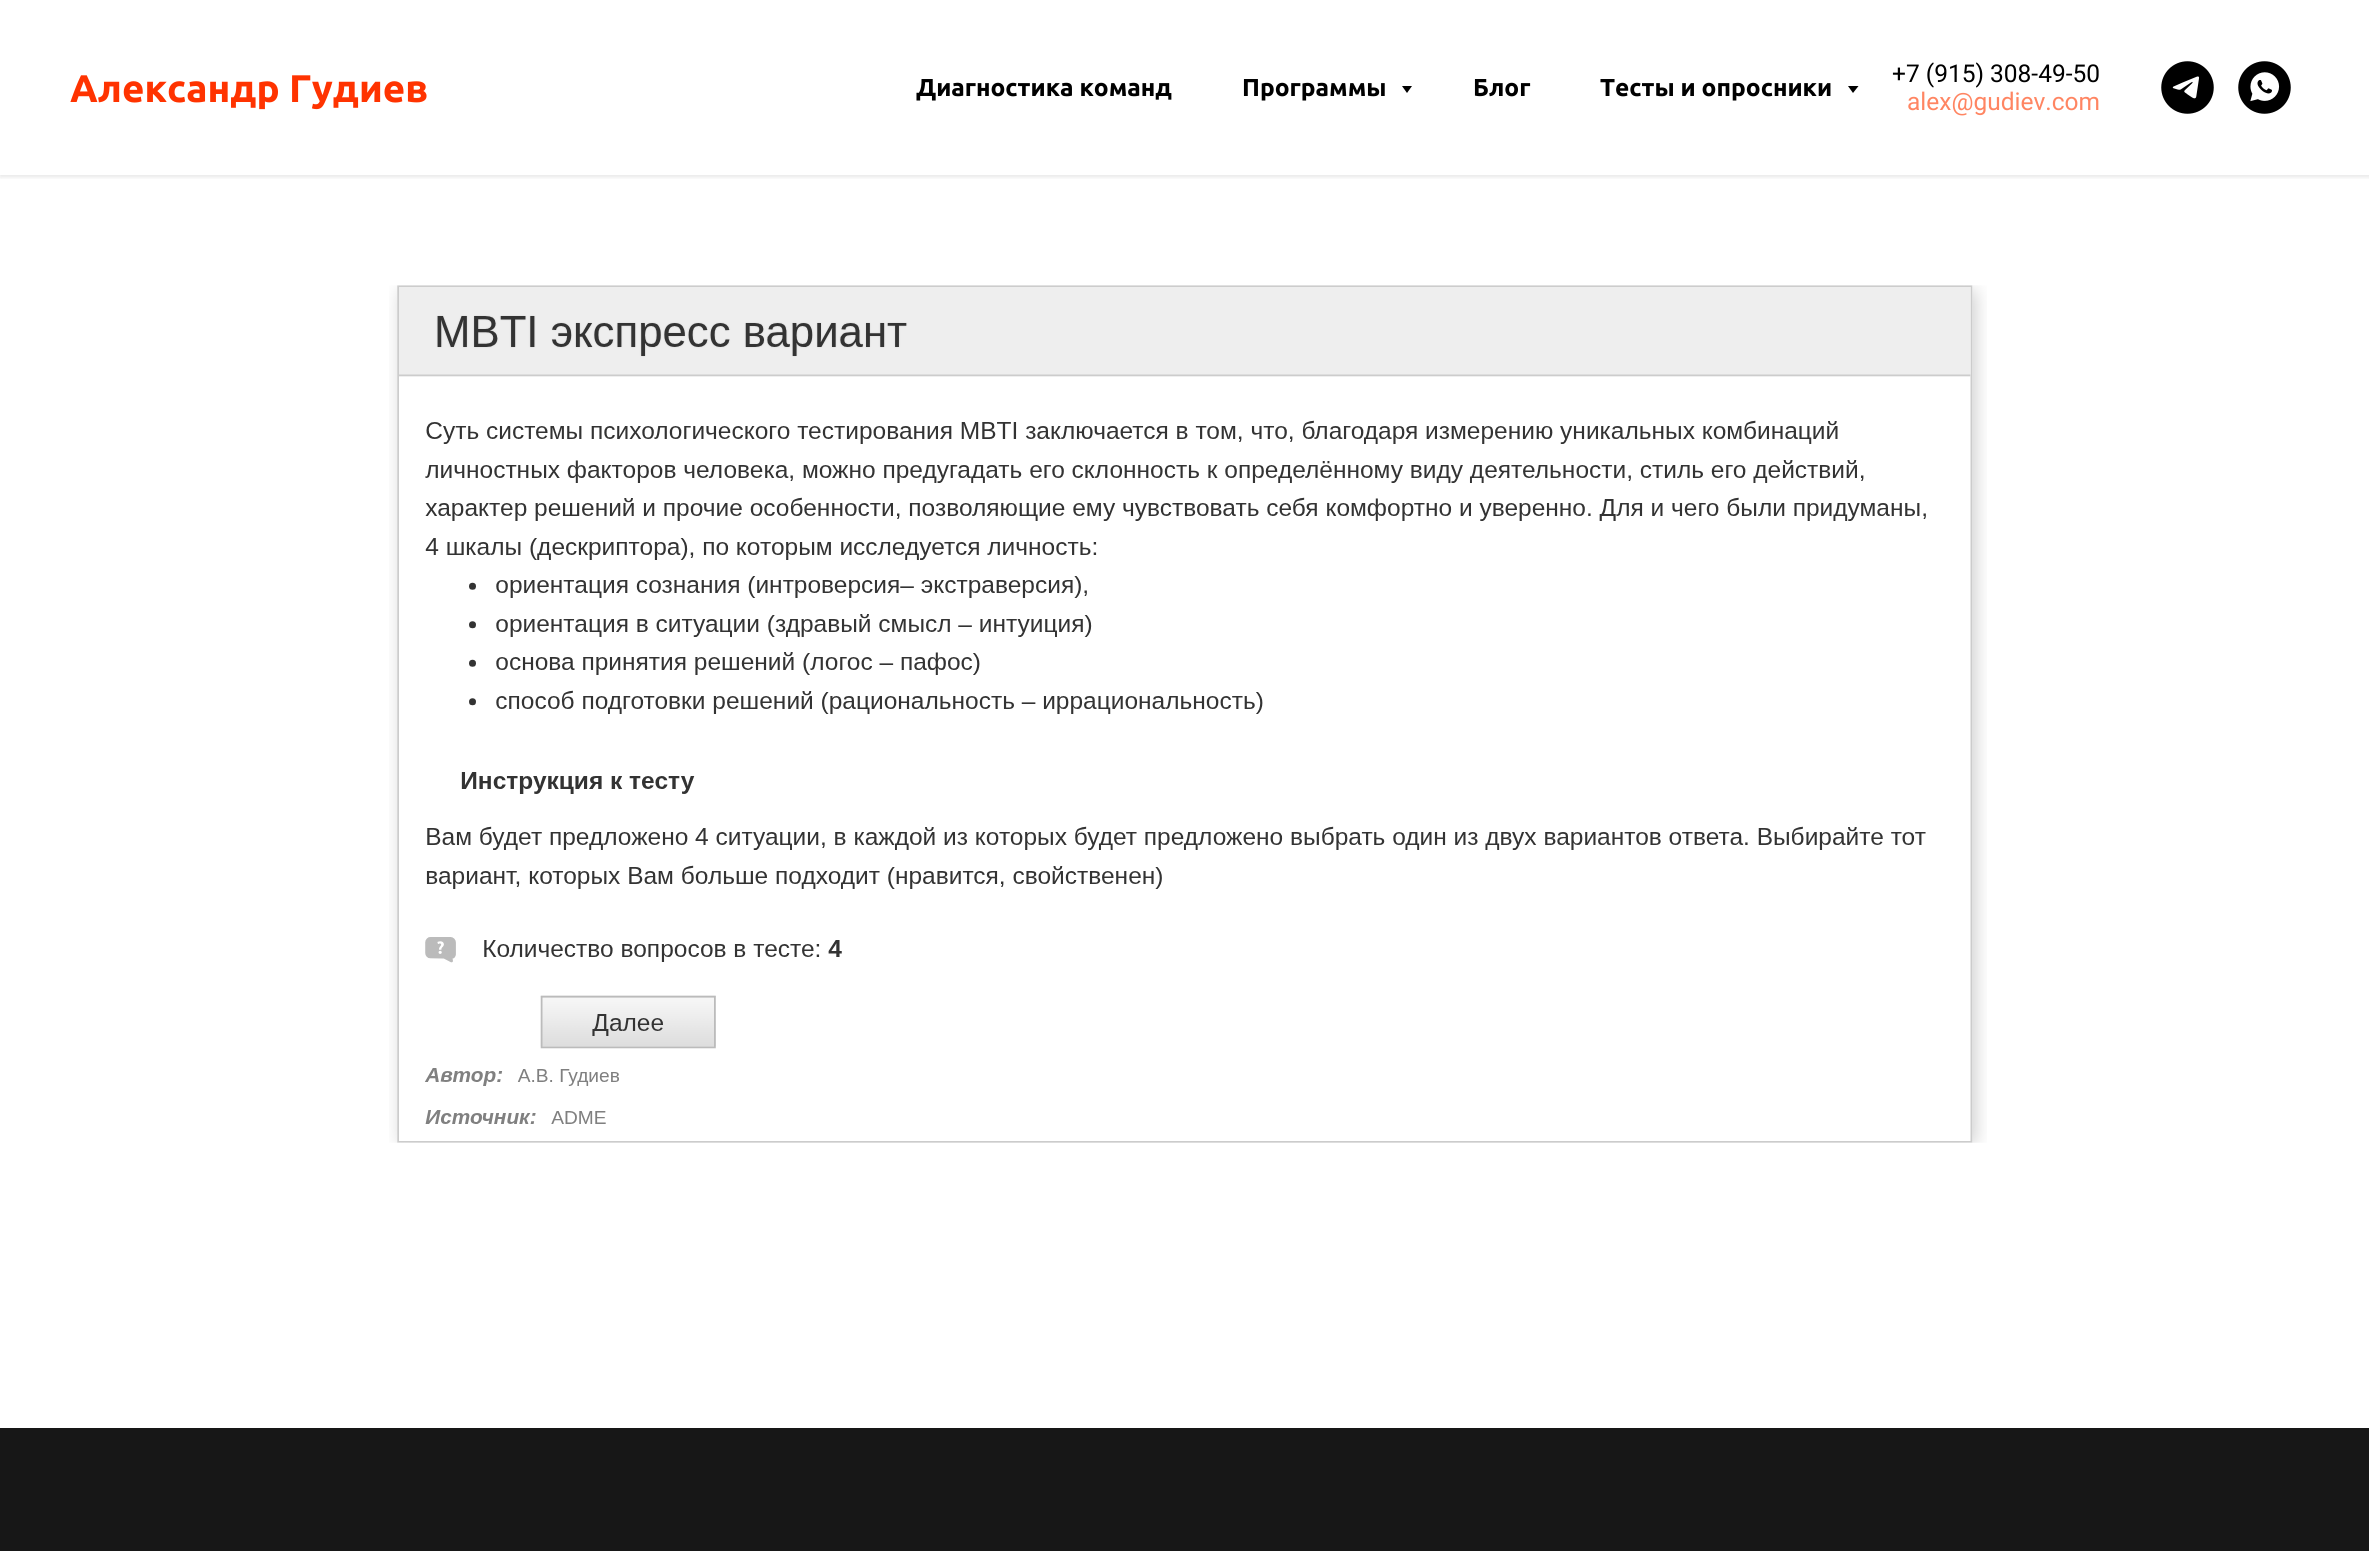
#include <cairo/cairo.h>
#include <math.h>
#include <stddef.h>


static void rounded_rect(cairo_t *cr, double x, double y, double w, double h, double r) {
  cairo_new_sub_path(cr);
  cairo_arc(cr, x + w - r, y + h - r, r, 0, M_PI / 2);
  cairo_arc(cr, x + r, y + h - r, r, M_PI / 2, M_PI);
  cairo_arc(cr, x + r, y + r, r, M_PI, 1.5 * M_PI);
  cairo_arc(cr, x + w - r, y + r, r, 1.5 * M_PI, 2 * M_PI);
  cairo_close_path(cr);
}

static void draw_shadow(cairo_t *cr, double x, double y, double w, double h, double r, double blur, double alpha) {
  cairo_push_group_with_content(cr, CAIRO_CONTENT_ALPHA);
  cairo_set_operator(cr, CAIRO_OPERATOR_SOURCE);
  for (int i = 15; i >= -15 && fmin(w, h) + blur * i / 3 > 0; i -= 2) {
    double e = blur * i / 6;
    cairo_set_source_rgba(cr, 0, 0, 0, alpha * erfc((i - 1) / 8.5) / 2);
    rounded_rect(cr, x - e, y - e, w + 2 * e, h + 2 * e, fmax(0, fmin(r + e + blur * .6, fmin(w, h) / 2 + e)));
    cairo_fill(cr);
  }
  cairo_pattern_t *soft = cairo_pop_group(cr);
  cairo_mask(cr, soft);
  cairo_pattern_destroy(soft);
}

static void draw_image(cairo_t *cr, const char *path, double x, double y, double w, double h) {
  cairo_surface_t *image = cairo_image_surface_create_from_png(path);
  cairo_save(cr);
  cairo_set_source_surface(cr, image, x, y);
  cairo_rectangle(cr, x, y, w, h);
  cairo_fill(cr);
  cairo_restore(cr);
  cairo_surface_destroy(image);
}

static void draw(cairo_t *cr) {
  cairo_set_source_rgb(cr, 1, 1, 1);
  cairo_paint(cr);
  cairo_save(cr);
  cairo_rectangle(cr, 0, 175, 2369, 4);
  cairo_clip(cr);
  cairo_set_source_rgb(cr, 0, 0, 0);
  draw_shadow(cr, 0, 2, 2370, 175, 0, 2.5, 0.1);
  cairo_restore(cr);
  cairo_set_source_rgb(cr, 0, 0, 0);
  cairo_new_path(cr);
  cairo_move_to(cr, 1402, 86);
  cairo_line_to(cr, 1412, 86);
  cairo_line_to(cr, 1407, 93);
  cairo_close_path(cr);
  cairo_fill(cr);
  cairo_new_path(cr);
  cairo_move_to(cr, 1848, 86);
  cairo_line_to(cr, 1858.5, 86);
  cairo_line_to(cr, 1853, 93);
  cairo_close_path(cr);
  cairo_fill(cr);
  draw_image(cr, "images/1.png", 2161, 61, 53, 53);
  draw_image(cr, "images/2.png", 2238, 61, 53, 53);
  draw_image(cr, "images/3.png", 389, 285, 1598, 858);
  cairo_set_source_rgb(cr, 23 / 255.0, 23 / 255.0, 23 / 255.0);
  cairo_rectangle(cr, 0, 1428, 2369, 123);
  cairo_fill(cr);
  cairo_select_font_face(cr, "Ubuntu", CAIRO_FONT_SLANT_NORMAL, CAIRO_FONT_WEIGHT_BOLD);
  cairo_set_font_size(cr, 38.5);
  cairo_set_source_rgb(cr, 1, 51 / 255.0, 0);
  cairo_move_to(cr, 70, 102);
  cairo_show_text(cr, "Александр Гудиев");
  cairo_set_font_size(cr, 24.5);
  cairo_set_source_rgb(cr, 0, 0, 0);
  cairo_move_to(cr, 916, 96);
  cairo_show_text(cr, "Диагностика команд");
  cairo_move_to(cr, 1242, 96);
  cairo_show_text(cr, "Программы");
  cairo_move_to(cr, 1473, 96);
  cairo_show_text(cr, "Блог");
  cairo_move_to(cr, 1600, 96);
  cairo_show_text(cr, "Тесты и опросники");
  cairo_select_font_face(cr, "Roboto", CAIRO_FONT_SLANT_NORMAL, CAIRO_FONT_WEIGHT_NORMAL);
  cairo_move_to(cr, 1892, 82);
  cairo_show_text(cr, "+7 (915) 308-49-50");
  cairo_set_source_rgb(cr, 1, 133 / 255.0, 98 / 255.0);
  cairo_move_to(cr, 1907, 110);
  cairo_show_text(cr, "alex@gudiev.com");
}

int main(void) {
  cairo_surface_t *surface = cairo_image_surface_create(CAIRO_FORMAT_RGB24, 2369, 1551);
  cairo_t *cr = cairo_create(surface);
  cairo_font_options_t *options = cairo_font_options_create();
  cairo_font_options_set_hint_metrics(options, CAIRO_HINT_METRICS_OFF);
  cairo_font_options_set_hint_style(options, CAIRO_HINT_STYLE_NONE);
  cairo_set_font_options(cr, options);
  cairo_set_miter_limit(cr, 4);
  draw(cr);
  cairo_surface_write_to_png(surface, "out.png");
  cairo_font_options_destroy(options);
  cairo_destroy(cr);
  cairo_surface_destroy(surface);
  return 0;
}
